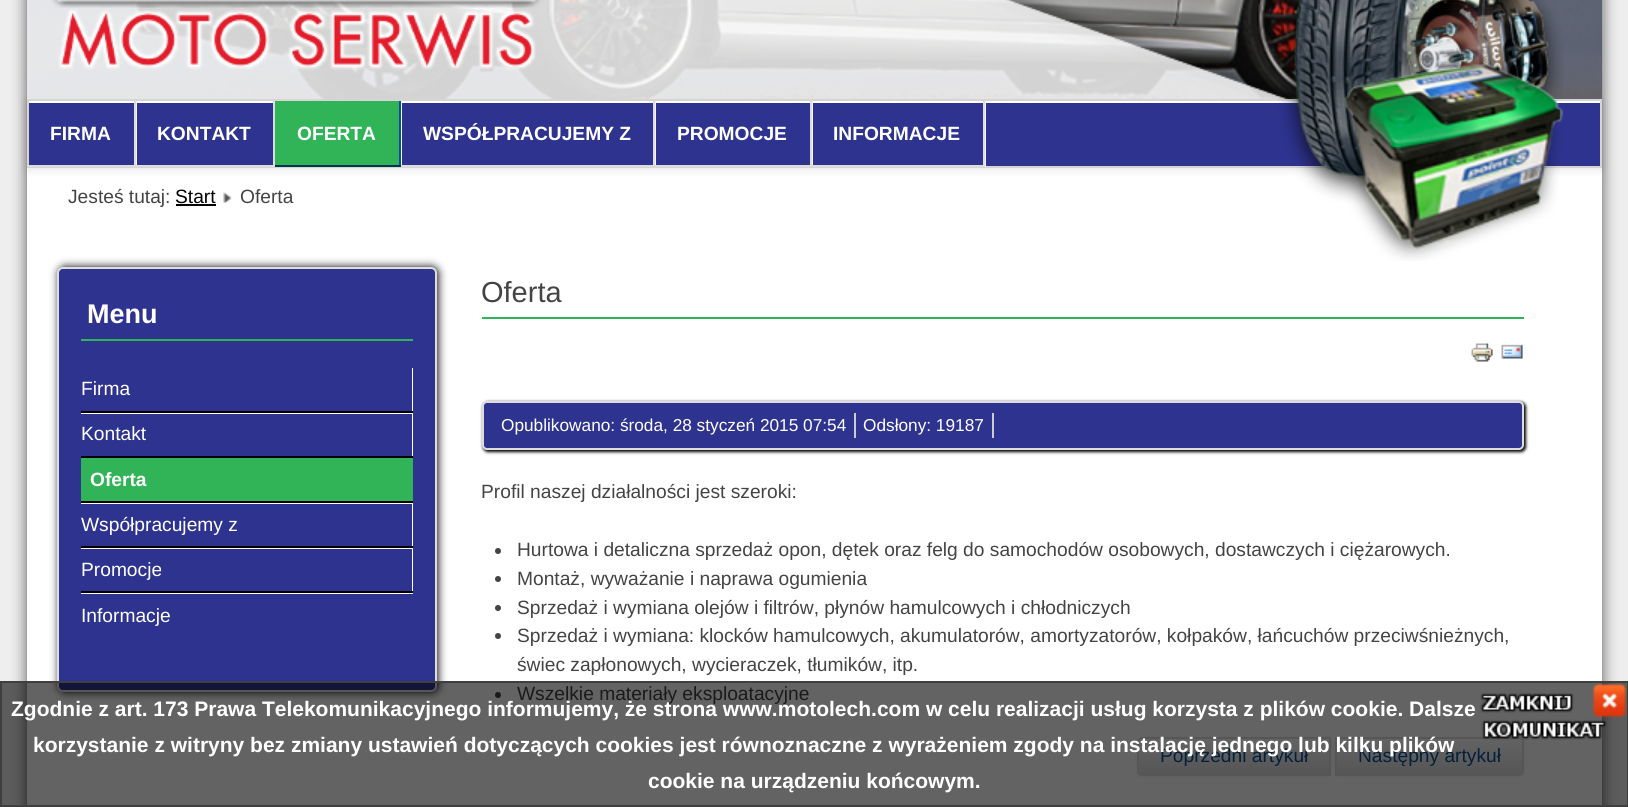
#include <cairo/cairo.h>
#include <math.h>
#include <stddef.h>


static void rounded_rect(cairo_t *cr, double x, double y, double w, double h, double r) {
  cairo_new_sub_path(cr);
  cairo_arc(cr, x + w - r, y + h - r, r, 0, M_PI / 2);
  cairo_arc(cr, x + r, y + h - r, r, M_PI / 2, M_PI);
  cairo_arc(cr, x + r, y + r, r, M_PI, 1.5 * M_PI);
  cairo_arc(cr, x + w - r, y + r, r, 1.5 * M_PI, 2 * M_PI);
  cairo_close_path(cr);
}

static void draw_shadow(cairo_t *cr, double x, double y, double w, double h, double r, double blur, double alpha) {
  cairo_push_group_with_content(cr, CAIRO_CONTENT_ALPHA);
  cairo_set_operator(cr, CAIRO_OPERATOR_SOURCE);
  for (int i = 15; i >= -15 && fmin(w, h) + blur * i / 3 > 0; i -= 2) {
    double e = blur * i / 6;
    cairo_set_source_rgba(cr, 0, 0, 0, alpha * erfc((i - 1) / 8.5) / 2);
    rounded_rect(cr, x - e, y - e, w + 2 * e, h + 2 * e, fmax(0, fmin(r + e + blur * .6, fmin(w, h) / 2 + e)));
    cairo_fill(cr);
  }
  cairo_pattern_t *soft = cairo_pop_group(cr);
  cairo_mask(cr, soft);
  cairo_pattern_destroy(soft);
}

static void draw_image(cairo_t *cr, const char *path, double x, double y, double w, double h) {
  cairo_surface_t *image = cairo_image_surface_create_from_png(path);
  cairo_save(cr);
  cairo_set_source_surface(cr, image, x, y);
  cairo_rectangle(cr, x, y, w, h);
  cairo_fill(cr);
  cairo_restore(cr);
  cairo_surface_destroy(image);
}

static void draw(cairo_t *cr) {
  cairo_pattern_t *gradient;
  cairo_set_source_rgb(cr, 238 / 255.0, 238 / 255.0, 238 / 255.0);
  cairo_paint(cr);
  cairo_set_source_rgb(cr, 85 / 255.0, 85 / 255.0, 85 / 255.0);
  draw_shadow(cr, 27, -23, 1575, 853, 0, 7.5, 1);
  cairo_set_source_rgb(cr, 1, 1, 1);
  cairo_rectangle(cr, 27, 168, 1575, 637);
  cairo_fill(cr);
  cairo_set_source_rgb(cr, 0, 0, 0);
  draw_shadow(cr, 27, 101, 1575, 69, 0, 4, 0.1);
  draw_image(cr, "images/1.png", 27, 0, 1575, 99);
  draw_image(cr, "images/2.png", 27, 0, 1273, 99);
  cairo_set_source_rgb(cr, 46 / 255.0, 51 / 255.0, 143 / 255.0);
  cairo_rectangle(cr, 29, 103, 1571, 63);
  cairo_fill(cr);
  cairo_set_source_rgb(cr, 1, 1, 1);
  cairo_rectangle(cr, 29, 101, 1572, 2);
  cairo_fill(cr);
  cairo_rectangle(cr, 28, 100, 1573, 67);
  cairo_set_source_rgb(cr, 213 / 255.0, 213 / 255.0, 213 / 255.0);
  cairo_stroke(cr);
  cairo_set_source_rgb(cr, 245 / 255.0, 245 / 255.0, 245 / 255.0);
  cairo_new_path(cr);
  cairo_move_to(cr, 29, 166);
  cairo_line_to(cr, 29, 167);
  cairo_line_to(cr, 137, 167);
  cairo_line_to(cr, 137, 101);
  cairo_line_to(cr, 135, 101);
  cairo_line_to(cr, 135, 166);
  cairo_close_path(cr);
  cairo_fill(cr);
  cairo_set_source_rgb(cr, 221 / 255.0, 221 / 255.0, 221 / 255.0);
  cairo_rectangle(cr, 134, 101, 2, 66);
  cairo_fill(cr);
  cairo_rectangle(cr, 27, 165, 108, 2);
  cairo_fill(cr);
  cairo_rectangle(cr, 273, 101, 2, 66);
  cairo_fill(cr);
  cairo_rectangle(cr, 135, 165, 140, 2);
  cairo_fill(cr);
  cairo_set_source_rgb(cr, 245 / 255.0, 245 / 255.0, 245 / 255.0);
  cairo_new_path(cr);
  cairo_move_to(cr, 276, 166);
  cairo_line_to(cr, 276, 167);
  cairo_line_to(cr, 402, 167);
  cairo_line_to(cr, 402, 101);
  cairo_line_to(cr, 400, 101);
  cairo_line_to(cr, 400, 166);
  cairo_close_path(cr);
  cairo_fill(cr);
  cairo_set_source_rgb(cr, 48 / 255.0, 180 / 255.0, 87 / 255.0);
  cairo_rectangle(cr, 275, 101, 124, 64);
  cairo_fill(cr);
  cairo_set_source_rgb(cr, 9 / 255.0, 81 / 255.0, 151 / 255.0);
  cairo_rectangle(cr, 399, 101, 2, 66);
  cairo_fill(cr);
  cairo_set_source_rgb(cr, 0, 53 / 255.0, 82 / 255.0);
  cairo_rectangle(cr, 275, 165, 126, 2);
  cairo_fill(cr);
  cairo_set_source_rgb(cr, 245 / 255.0, 245 / 255.0, 245 / 255.0);
  cairo_new_path(cr);
  cairo_move_to(cr, 402, 166);
  cairo_line_to(cr, 402, 167);
  cairo_line_to(cr, 656, 167);
  cairo_line_to(cr, 656, 101);
  cairo_line_to(cr, 654, 101);
  cairo_line_to(cr, 654, 166);
  cairo_close_path(cr);
  cairo_fill(cr);
  cairo_set_source_rgb(cr, 221 / 255.0, 221 / 255.0, 221 / 255.0);
  cairo_rectangle(cr, 653, 101, 2, 66);
  cairo_fill(cr);
  cairo_rectangle(cr, 401, 165, 253, 2);
  cairo_fill(cr);
  cairo_set_source_rgb(cr, 245 / 255.0, 245 / 255.0, 245 / 255.0);
  cairo_new_path(cr);
  cairo_move_to(cr, 656, 166);
  cairo_line_to(cr, 656, 167);
  cairo_line_to(cr, 813, 167);
  cairo_line_to(cr, 813, 101);
  cairo_line_to(cr, 812, 101);
  cairo_line_to(cr, 812, 166);
  cairo_close_path(cr);
  cairo_fill(cr);
  cairo_set_source_rgb(cr, 221 / 255.0, 221 / 255.0, 221 / 255.0);
  cairo_rectangle(cr, 810, 101, 2, 66);
  cairo_fill(cr);
  cairo_rectangle(cr, 654, 165, 158, 2);
  cairo_fill(cr);
  cairo_set_source_rgb(cr, 245 / 255.0, 245 / 255.0, 245 / 255.0);
  cairo_new_path(cr);
  cairo_move_to(cr, 813, 166);
  cairo_line_to(cr, 813, 167);
  cairo_line_to(cr, 986, 167);
  cairo_line_to(cr, 986, 101);
  cairo_line_to(cr, 984, 101);
  cairo_line_to(cr, 984, 166);
  cairo_close_path(cr);
  cairo_fill(cr);
  cairo_set_source_rgb(cr, 221 / 255.0, 221 / 255.0, 221 / 255.0);
  cairo_rectangle(cr, 983, 101, 2, 66);
  cairo_fill(cr);
  cairo_rectangle(cr, 812, 165, 172, 2);
  cairo_fill(cr);
  draw_image(cr, "images/3.png", 1277, 0, 287, 261);
  cairo_set_source_rgb(cr, 0, 0, 0);
  cairo_rectangle(cr, 176, 204, 40, 2);
  cairo_fill(cr);
  draw_image(cr, "images/4.png", 223, 192, 9, 11);
  cairo_set_source_rgb(cr, 0, 0, 0);
  draw_shadow(cr, 59, 267, 379, 425, 6, 4.5, 1);
  cairo_set_source_rgb(cr, 46 / 255.0, 51 / 255.0, 143 / 255.0);
  rounded_rect(cr, 58, 268, 378, 423, 5);
  cairo_fill_preserve(cr);
  cairo_set_source_rgb(cr, 221 / 255.0, 221 / 255.0, 221 / 255.0);
  cairo_stroke(cr);
  cairo_set_source_rgb(cr, 48 / 255.0, 180 / 255.0, 87 / 255.0);
  cairo_rectangle(cr, 81, 339, 332, 2);
  cairo_fill(cr);
  cairo_set_source_rgb(cr, 1, 1, 1);
  cairo_new_path(cr);
  cairo_move_to(cr, 81, 412);
  cairo_line_to(cr, 81, 414);
  cairo_line_to(cr, 413, 414);
  cairo_line_to(cr, 413, 368);
  cairo_line_to(cr, 412, 368);
  cairo_line_to(cr, 412, 412);
  cairo_close_path(cr);
  cairo_fill(cr);
  cairo_set_source_rgb(cr, 0, 0, 0);
  cairo_rectangle(cr, 81, 411, 332, 2);
  cairo_fill(cr);
  cairo_set_source_rgb(cr, 1, 1, 1);
  cairo_new_path(cr);
  cairo_move_to(cr, 81, 458);
  cairo_line_to(cr, 81, 459);
  cairo_line_to(cr, 413, 459);
  cairo_line_to(cr, 413, 414);
  cairo_line_to(cr, 412, 414);
  cairo_line_to(cr, 412, 458);
  cairo_close_path(cr);
  cairo_fill(cr);
  cairo_set_source_rgb(cr, 0, 0, 0);
  cairo_rectangle(cr, 81, 456, 332, 2);
  cairo_fill(cr);
  cairo_set_source_rgb(cr, 1, 1, 1);
  cairo_new_path(cr);
  cairo_move_to(cr, 81, 502);
  cairo_line_to(cr, 81, 504);
  cairo_line_to(cr, 413, 504);
  cairo_line_to(cr, 413, 459);
  cairo_line_to(cr, 412, 459);
  cairo_line_to(cr, 412, 502);
  cairo_close_path(cr);
  cairo_fill(cr);
  cairo_set_source_rgb(cr, 48 / 255.0, 180 / 255.0, 87 / 255.0);
  cairo_rectangle(cr, 81, 458, 332, 43);
  cairo_fill(cr);
  cairo_set_source_rgb(cr, 0, 0, 0);
  cairo_rectangle(cr, 81, 501, 332, 2);
  cairo_fill(cr);
  cairo_set_source_rgb(cr, 1, 1, 1);
  cairo_new_path(cr);
  cairo_move_to(cr, 81, 548);
  cairo_line_to(cr, 81, 549);
  cairo_line_to(cr, 413, 549);
  cairo_line_to(cr, 413, 504);
  cairo_line_to(cr, 412, 504);
  cairo_line_to(cr, 412, 548);
  cairo_close_path(cr);
  cairo_fill(cr);
  cairo_set_source_rgb(cr, 0, 0, 0);
  cairo_rectangle(cr, 81, 546, 332, 2);
  cairo_fill(cr);
  cairo_set_source_rgb(cr, 1, 1, 1);
  cairo_new_path(cr);
  cairo_move_to(cr, 81, 592);
  cairo_line_to(cr, 81, 594);
  cairo_line_to(cr, 413, 594);
  cairo_line_to(cr, 413, 549);
  cairo_line_to(cr, 412, 549);
  cairo_line_to(cr, 412, 592);
  cairo_close_path(cr);
  cairo_fill(cr);
  cairo_set_source_rgb(cr, 0, 0, 0);
  cairo_rectangle(cr, 81, 591, 332, 2);
  cairo_fill(cr);
  cairo_set_source_rgb(cr, 48 / 255.0, 180 / 255.0, 87 / 255.0);
  cairo_rectangle(cr, 482, 317, 1042, 2);
  cairo_fill(cr);
  draw_image(cr, "images/5.png", 1471, 343, 22, 19);
  draw_image(cr, "images/6.png", 1501, 344, 22, 15);
  cairo_set_source_rgb(cr, 0, 0, 0);
  draw_shadow(cr, 483, 402, 1043, 50, 5, 1.5, 1);
  cairo_set_source_rgb(cr, 46 / 255.0, 51 / 255.0, 143 / 255.0);
  rounded_rect(cr, 483, 402, 1040, 47, 4);
  cairo_fill_preserve(cr);
  cairo_set_source_rgb(cr, 221 / 255.0, 221 / 255.0, 221 / 255.0);
  cairo_stroke(cr);
  cairo_set_source_rgb(cr, 204 / 255.0, 204 / 255.0, 204 / 255.0);
  cairo_rectangle(cr, 854, 413, 2, 25);
  cairo_fill(cr);
  cairo_rectangle(cr, 992, 413, 2, 25);
  cairo_fill(cr);
  cairo_set_source_rgb(cr, 68 / 255.0, 68 / 255.0, 68 / 255.0);
  cairo_arc(cr, 498, 551, 3, 0, 2 * M_PI);
  cairo_fill(cr);
  cairo_arc(cr, 498, 579, 3, 0, 2 * M_PI);
  cairo_fill(cr);
  cairo_arc(cr, 498, 608, 3, 0, 2 * M_PI);
  cairo_fill(cr);
  cairo_arc(cr, 498, 636, 3, 0, 2 * M_PI);
  cairo_fill(cr);
  cairo_arc(cr, 498, 695, 3, 0, 2 * M_PI);
  cairo_fill(cr);
  cairo_set_source_rgb(cr, 0, 0, 0);
  draw_shadow(cr, 1137, 738, 194, 39, 5, 1.5, 0.05);
  cairo_save(cr);
  cairo_new_path(cr);
  cairo_move_to(cr, 1142, 737);
  cairo_line_to(cr, 1331, 737);
  cairo_line_to(cr, 1331, 776);
  cairo_line_to(cr, 1142, 776);
  cairo_curve_to(cr, 1139, 776, 1137, 774, 1137, 771);
  cairo_line_to(cr, 1137, 742);
  cairo_curve_to(cr, 1137, 739, 1139, 737, 1142, 737);
  cairo_close_path(cr);
  cairo_clip(cr);
  gradient = cairo_pattern_create_linear(1234, 738, 1234, 774);
  cairo_pattern_add_color_stop_rgba(gradient, 0, 1, 1, 1, 1);
  cairo_pattern_add_color_stop_rgba(gradient, 1, 221 / 255.0, 221 / 255.0, 221 / 255.0, 1);
  cairo_set_source(cr, gradient);
  cairo_pattern_destroy(gradient);
  cairo_rectangle(cr, 1137, 738, 192, 36);
  cairo_fill(cr);
  cairo_restore(cr);
  cairo_new_path(cr);
  cairo_move_to(cr, 1142, 738);
  cairo_line_to(cr, 1330, 738);
  cairo_line_to(cr, 1330, 775);
  cairo_line_to(cr, 1142, 775);
  cairo_curve_to(cr, 1140, 775, 1138, 773, 1138, 771);
  cairo_line_to(cr, 1138, 742);
  cairo_curve_to(cr, 1138, 740, 1140, 738, 1142, 738);
  cairo_close_path(cr);
  cairo_set_source_rgb(cr, 221 / 255.0, 221 / 255.0, 221 / 255.0);
  cairo_stroke(cr);
  cairo_set_source_rgb(cr, 0, 0, 0);
  draw_shadow(cr, 1335, 738, 189, 39, 5, 1.5, 0.05);
  cairo_save(cr);
  cairo_new_path(cr);
  cairo_move_to(cr, 1335, 737);
  cairo_line_to(cr, 1519, 737);
  cairo_curve_to(cr, 1522, 737, 1524, 739, 1524, 742);
  cairo_line_to(cr, 1524, 771);
  cairo_curve_to(cr, 1524, 774, 1522, 776, 1519, 776);
  cairo_line_to(cr, 1335, 776);
  cairo_close_path(cr);
  cairo_clip(cr);
  gradient = cairo_pattern_create_linear(1430, 738, 1430, 774);
  cairo_pattern_add_color_stop_rgba(gradient, 0, 1, 1, 1, 1);
  cairo_pattern_add_color_stop_rgba(gradient, 1, 221 / 255.0, 221 / 255.0, 221 / 255.0, 1);
  cairo_set_source(cr, gradient);
  cairo_pattern_destroy(gradient);
  cairo_rectangle(cr, 1337, 738, 187, 36);
  cairo_fill(cr);
  cairo_restore(cr);
  cairo_set_source_rgba(cr, 1, 1, 1, 0.2);
  cairo_new_path(cr);
  cairo_move_to(cr, 1337, 738);
  cairo_line_to(cr, 1337, 740);
  cairo_line_to(cr, 1520, 740);
  cairo_curve_to(cr, 1521, 740, 1522, 741, 1522, 742);
  cairo_line_to(cr, 1522, 773);
  cairo_curve_to(cr, 1523, 773, 1523, 772, 1523, 771);
  cairo_line_to(cr, 1523, 741);
  cairo_curve_to(cr, 1523, 739, 1522, 738, 1520, 738);
  cairo_close_path(cr);
  cairo_fill(cr);
  cairo_new_path(cr);
  cairo_move_to(cr, 1336, 738);
  cairo_line_to(cr, 1519, 738);
  cairo_curve_to(cr, 1521, 738, 1523, 740, 1523, 742);
  cairo_line_to(cr, 1523, 771);
  cairo_curve_to(cr, 1523, 773, 1521, 775, 1519, 775);
  cairo_line_to(cr, 1336, 775);
  cairo_close_path(cr);
  cairo_set_source_rgb(cr, 221 / 255.0, 221 / 255.0, 221 / 255.0);
  cairo_stroke(cr);
  cairo_select_font_face(cr, "Liberation Sans", CAIRO_FONT_SLANT_NORMAL, CAIRO_FONT_WEIGHT_BOLD);
  cairo_set_font_size(cr, 19.2);
  cairo_set_source_rgb(cr, 1, 1, 1);
  cairo_move_to(cr, 50, 140);
  cairo_show_text(cr, "FIRMA");
  cairo_move_to(cr, 157, 140);
  cairo_show_text(cr, "KONTAKT");
  cairo_move_to(cr, 297, 140);
  cairo_show_text(cr, "OFERTA");
  cairo_move_to(cr, 423, 140);
  cairo_show_text(cr, "WSPÓŁPRACUJEMY Z");
  cairo_move_to(cr, 677, 140);
  cairo_show_text(cr, "PROMOCJE");
  cairo_move_to(cr, 833, 140);
  cairo_show_text(cr, "INFORMACJE");
  cairo_select_font_face(cr, "Liberation Sans", CAIRO_FONT_SLANT_NORMAL, CAIRO_FONT_WEIGHT_NORMAL);
  cairo_set_source_rgb(cr, 68 / 255.0, 68 / 255.0, 68 / 255.0);
  cairo_move_to(cr, 68, 203);
  cairo_show_text(cr, "Jesteś tutaj:");
  cairo_set_source_rgb(cr, 0, 0, 0);
  cairo_move_to(cr, 175, 203);
  cairo_show_text(cr, "Start");
  cairo_set_source_rgb(cr, 68 / 255.0, 68 / 255.0, 68 / 255.0);
  cairo_move_to(cr, 240, 203);
  cairo_show_text(cr, "Oferta");
  cairo_select_font_face(cr, "Liberation Sans", CAIRO_FONT_SLANT_NORMAL, CAIRO_FONT_WEIGHT_BOLD);
  cairo_set_font_size(cr, 27);
  cairo_set_source_rgb(cr, 1, 1, 1);
  cairo_move_to(cr, 87, 323);
  cairo_show_text(cr, "Menu");
  cairo_select_font_face(cr, "Liberation Sans", CAIRO_FONT_SLANT_NORMAL, CAIRO_FONT_WEIGHT_NORMAL);
  cairo_set_font_size(cr, 19.2);
  cairo_move_to(cr, 81, 395);
  cairo_show_text(cr, "Firma");
  cairo_move_to(cr, 81, 440);
  cairo_show_text(cr, "Kontakt");
  cairo_select_font_face(cr, "Liberation Sans", CAIRO_FONT_SLANT_NORMAL, CAIRO_FONT_WEIGHT_BOLD);
  cairo_move_to(cr, 90, 486);
  cairo_show_text(cr, "Oferta");
  cairo_select_font_face(cr, "Liberation Sans", CAIRO_FONT_SLANT_NORMAL, CAIRO_FONT_WEIGHT_NORMAL);
  cairo_move_to(cr, 81, 531);
  cairo_show_text(cr, "Współpracujemy z");
  cairo_move_to(cr, 81, 576);
  cairo_show_text(cr, "Promocje");
  cairo_move_to(cr, 81, 622);
  cairo_show_text(cr, "Informacje");
  cairo_set_font_size(cr, 29);
  cairo_set_source_rgb(cr, 68 / 255.0, 68 / 255.0, 68 / 255.0);
  cairo_move_to(cr, 481, 302);
  cairo_show_text(cr, "Oferta");
  cairo_set_font_size(cr, 17.25);
  cairo_set_source_rgb(cr, 1, 1, 1);
  cairo_move_to(cr, 501, 431);
  cairo_show_text(cr, "Opublikowano: środa, 28 styczeń 2015 07:54");
  cairo_move_to(cr, 863, 431);
  cairo_show_text(cr, "Odsłony: 19187");
  cairo_set_font_size(cr, 19.2);
  cairo_set_source_rgb(cr, 68 / 255.0, 68 / 255.0, 68 / 255.0);
  cairo_move_to(cr, 481, 498);
  cairo_show_text(cr, "Profil naszej działalności jest szeroki:");
  cairo_move_to(cr, 517, 556);
  cairo_show_text(cr, "Hurtowa i detaliczna sprzedaż opon, dętek oraz felg do samochodów osobowych, dostawczych i ciężarowych.");
  cairo_move_to(cr, 517, 585);
  cairo_show_text(cr, "Montaż, wyważanie i naprawa ogumienia");
  cairo_move_to(cr, 517, 614);
  cairo_show_text(cr, "Sprzedaż i wymiana olejów i filtrów, płynów hamulcowych i chłodniczych");
  cairo_move_to(cr, 517, 642);
  cairo_show_text(cr, "Sprzedaż i wymiana: klocków hamulcowych, akumulatorów, amortyzatorów, kołpaków, łańcuchów przeciwśnieżnych,");
  cairo_move_to(cr, 517, 671);
  cairo_show_text(cr, "świec zapłonowych, wycieraczek, tłumików, itp.");
  cairo_move_to(cr, 517, 700);
  cairo_show_text(cr, "Wszelkie materiały eksploatacyjne");
  cairo_set_source_rgb(cr, 9 / 255.0, 81 / 255.0, 151 / 255.0);
  cairo_move_to(cr, 1160, 762);
  cairo_show_text(cr, "Poprzedni artykuł");
  cairo_move_to(cr, 1358, 762);
  cairo_show_text(cr, "Następny artykuł");
  cairo_set_source_rgba(cr, 0, 0, 0, 0.61);
  cairo_rectangle(cr, 1, 682, 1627, 124);
  cairo_fill_preserve(cr);
  cairo_set_source_rgb(cr, 63 / 255.0, 63 / 255.0, 63 / 255.0);
  cairo_stroke(cr);
  cairo_select_font_face(cr, "Liberation Sans", CAIRO_FONT_SLANT_NORMAL, CAIRO_FONT_WEIGHT_BOLD);
  cairo_set_font_size(cr, 21);
  cairo_set_source_rgb(cr, 1, 1, 1);
  cairo_move_to(cr, 11, 716);
  cairo_show_text(cr, "Zgodnie z art. 173 Prawa Telekomunikacyjnego informujemy, że strona www.motolech.com w celu realizacji usług korzysta z plików cookie. Dalsze");
  cairo_move_to(cr, 33, 752);
  cairo_show_text(cr, "korzystanie z witryny bez zmiany ustawień dotyczących cookies jest równoznaczne z wyrażeniem zgody na instalację jednego lub kilku plików");
  cairo_move_to(cr, 648, 788);
  cairo_show_text(cr, "cookie na urządzeniu końcowym.");
  draw_image(cr, "images/7.png", 1480, 683, 147, 57);
}

int main(void) {
  cairo_surface_t *surface = cairo_image_surface_create(CAIRO_FORMAT_RGB24, 1628, 807);
  cairo_t *cr = cairo_create(surface);
  cairo_font_options_t *options = cairo_font_options_create();
  cairo_font_options_set_hint_metrics(options, CAIRO_HINT_METRICS_OFF);
  cairo_font_options_set_hint_style(options, CAIRO_HINT_STYLE_NONE);
  cairo_set_font_options(cr, options);
  cairo_set_miter_limit(cr, 4);
  draw(cr);
  cairo_surface_write_to_png(surface, "out.png");
  cairo_font_options_destroy(options);
  cairo_destroy(cr);
  cairo_surface_destroy(surface);
  return 0;
}
